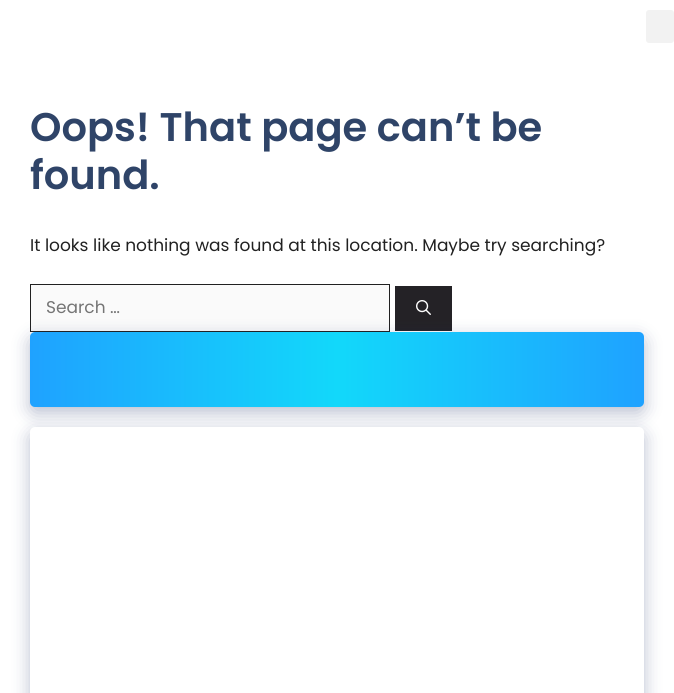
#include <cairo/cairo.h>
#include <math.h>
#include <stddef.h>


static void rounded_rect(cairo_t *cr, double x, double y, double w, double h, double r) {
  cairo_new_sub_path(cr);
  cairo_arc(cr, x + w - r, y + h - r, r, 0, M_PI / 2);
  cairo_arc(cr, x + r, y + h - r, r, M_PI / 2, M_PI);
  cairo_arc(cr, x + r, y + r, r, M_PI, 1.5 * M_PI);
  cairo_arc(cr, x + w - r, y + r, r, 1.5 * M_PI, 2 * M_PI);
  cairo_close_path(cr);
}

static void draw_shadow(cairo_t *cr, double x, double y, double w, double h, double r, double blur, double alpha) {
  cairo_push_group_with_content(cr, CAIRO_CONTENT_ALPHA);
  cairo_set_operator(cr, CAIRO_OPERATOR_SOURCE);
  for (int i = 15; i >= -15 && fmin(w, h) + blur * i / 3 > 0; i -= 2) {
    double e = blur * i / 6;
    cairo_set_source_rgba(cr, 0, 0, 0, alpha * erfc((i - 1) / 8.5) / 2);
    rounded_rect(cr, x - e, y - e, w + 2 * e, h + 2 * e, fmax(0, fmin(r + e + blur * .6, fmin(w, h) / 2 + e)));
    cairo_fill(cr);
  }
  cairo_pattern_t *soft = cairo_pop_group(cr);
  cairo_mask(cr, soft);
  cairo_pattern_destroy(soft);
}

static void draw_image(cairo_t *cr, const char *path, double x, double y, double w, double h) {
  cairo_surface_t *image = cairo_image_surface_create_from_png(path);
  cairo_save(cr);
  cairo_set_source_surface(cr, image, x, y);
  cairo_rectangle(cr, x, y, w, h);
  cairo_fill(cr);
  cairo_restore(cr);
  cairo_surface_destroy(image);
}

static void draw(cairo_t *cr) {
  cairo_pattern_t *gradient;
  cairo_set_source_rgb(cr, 1, 1, 1);
  cairo_paint(cr);
  cairo_set_source_rgb(cr, 242 / 255.0, 242 / 255.0, 242 / 255.0);
  rounded_rect(cr, 646, 10, 28, 33, 3);
  cairo_fill(cr);
  cairo_set_source_rgb(cr, 250 / 255.0, 250 / 255.0, 250 / 255.0);
  cairo_rectangle(cr, 30.5, 284.5, 359, 47);
  cairo_fill_preserve(cr);
  cairo_set_source_rgb(cr, 33 / 255.0, 33 / 255.0, 33 / 255.0);
  cairo_set_line_width(cr, 1);
  cairo_stroke(cr);
  cairo_set_source_rgb(cr, 36 / 255.0, 34 / 255.0, 38 / 255.0);
  cairo_rectangle(cr, 395, 286, 57, 45);
  cairo_fill(cr);
  cairo_set_source_rgb(cr, 23 / 255.0, 43 / 255.0, 99 / 255.0);
  draw_shadow(cr, 30, 338, 614, 75, 5, 9, 0.3);
  draw_image(cr, "images/1.png", 416, 300, 15, 15);
  gradient = cairo_pattern_create_linear(30, 370, 644, 370);
  cairo_pattern_add_color_stop_rgba(gradient, 0, 31 / 255.0, 162 / 255.0, 1, 1);
  cairo_pattern_add_color_stop_rgba(gradient, 0.5, 18 / 255.0, 216 / 255.0, 250 / 255.0, 1);
  cairo_pattern_add_color_stop_rgba(gradient, 1, 31 / 255.0, 162 / 255.0, 1, 1);
  cairo_set_source(cr, gradient);
  cairo_pattern_destroy(gradient);
  rounded_rect(cr, 30, 332, 614, 75, 5);
  cairo_fill(cr);
  cairo_set_source_rgb(cr, 23 / 255.0, 43 / 255.0, 99 / 255.0);
  draw_shadow(cr, 30, 433, 614, 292, 5, 9, 0.3);
  cairo_set_source_rgb(cr, 1, 1, 1);
  rounded_rect(cr, 30, 427, 614, 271, 5);
  cairo_fill(cr);
  cairo_select_font_face(cr, "Poppins SemiBold", CAIRO_FONT_SLANT_NORMAL, CAIRO_FONT_WEIGHT_NORMAL);
  cairo_set_font_size(cr, 40);
  cairo_set_source_rgb(cr, 47 / 255.0, 68 / 255.0, 104 / 255.0);
  cairo_move_to(cr, 30, 141);
  cairo_show_text(cr, "Oops! That page can’t be");
  cairo_move_to(cr, 30, 189);
  cairo_show_text(cr, "found.");
  cairo_select_font_face(cr, "Poppins", CAIRO_FONT_SLANT_NORMAL, CAIRO_FONT_WEIGHT_NORMAL);
  cairo_set_font_size(cr, 17);
  cairo_set_source_rgb(cr, 33 / 255.0, 33 / 255.0, 33 / 255.0);
  cairo_move_to(cr, 30, 251);
  cairo_show_text(cr, "It looks like nothing was found at this location. Maybe try searching?");
  cairo_set_source_rgb(cr, 117 / 255.0, 117 / 255.0, 117 / 255.0);
  cairo_move_to(cr, 46, 313);
  cairo_show_text(cr, "Search …");
}

int main(void) {
  cairo_surface_t *surface = cairo_image_surface_create(CAIRO_FORMAT_RGB24, 674, 693);
  cairo_t *cr = cairo_create(surface);
  cairo_font_options_t *options = cairo_font_options_create();
  cairo_font_options_set_hint_metrics(options, CAIRO_HINT_METRICS_OFF);
  cairo_font_options_set_hint_style(options, CAIRO_HINT_STYLE_NONE);
  cairo_set_font_options(cr, options);
  cairo_set_miter_limit(cr, 4);
  draw(cr);
  cairo_surface_write_to_png(surface, "out.png");
  cairo_font_options_destroy(options);
  cairo_destroy(cr);
  cairo_surface_destroy(surface);
  return 0;
}
